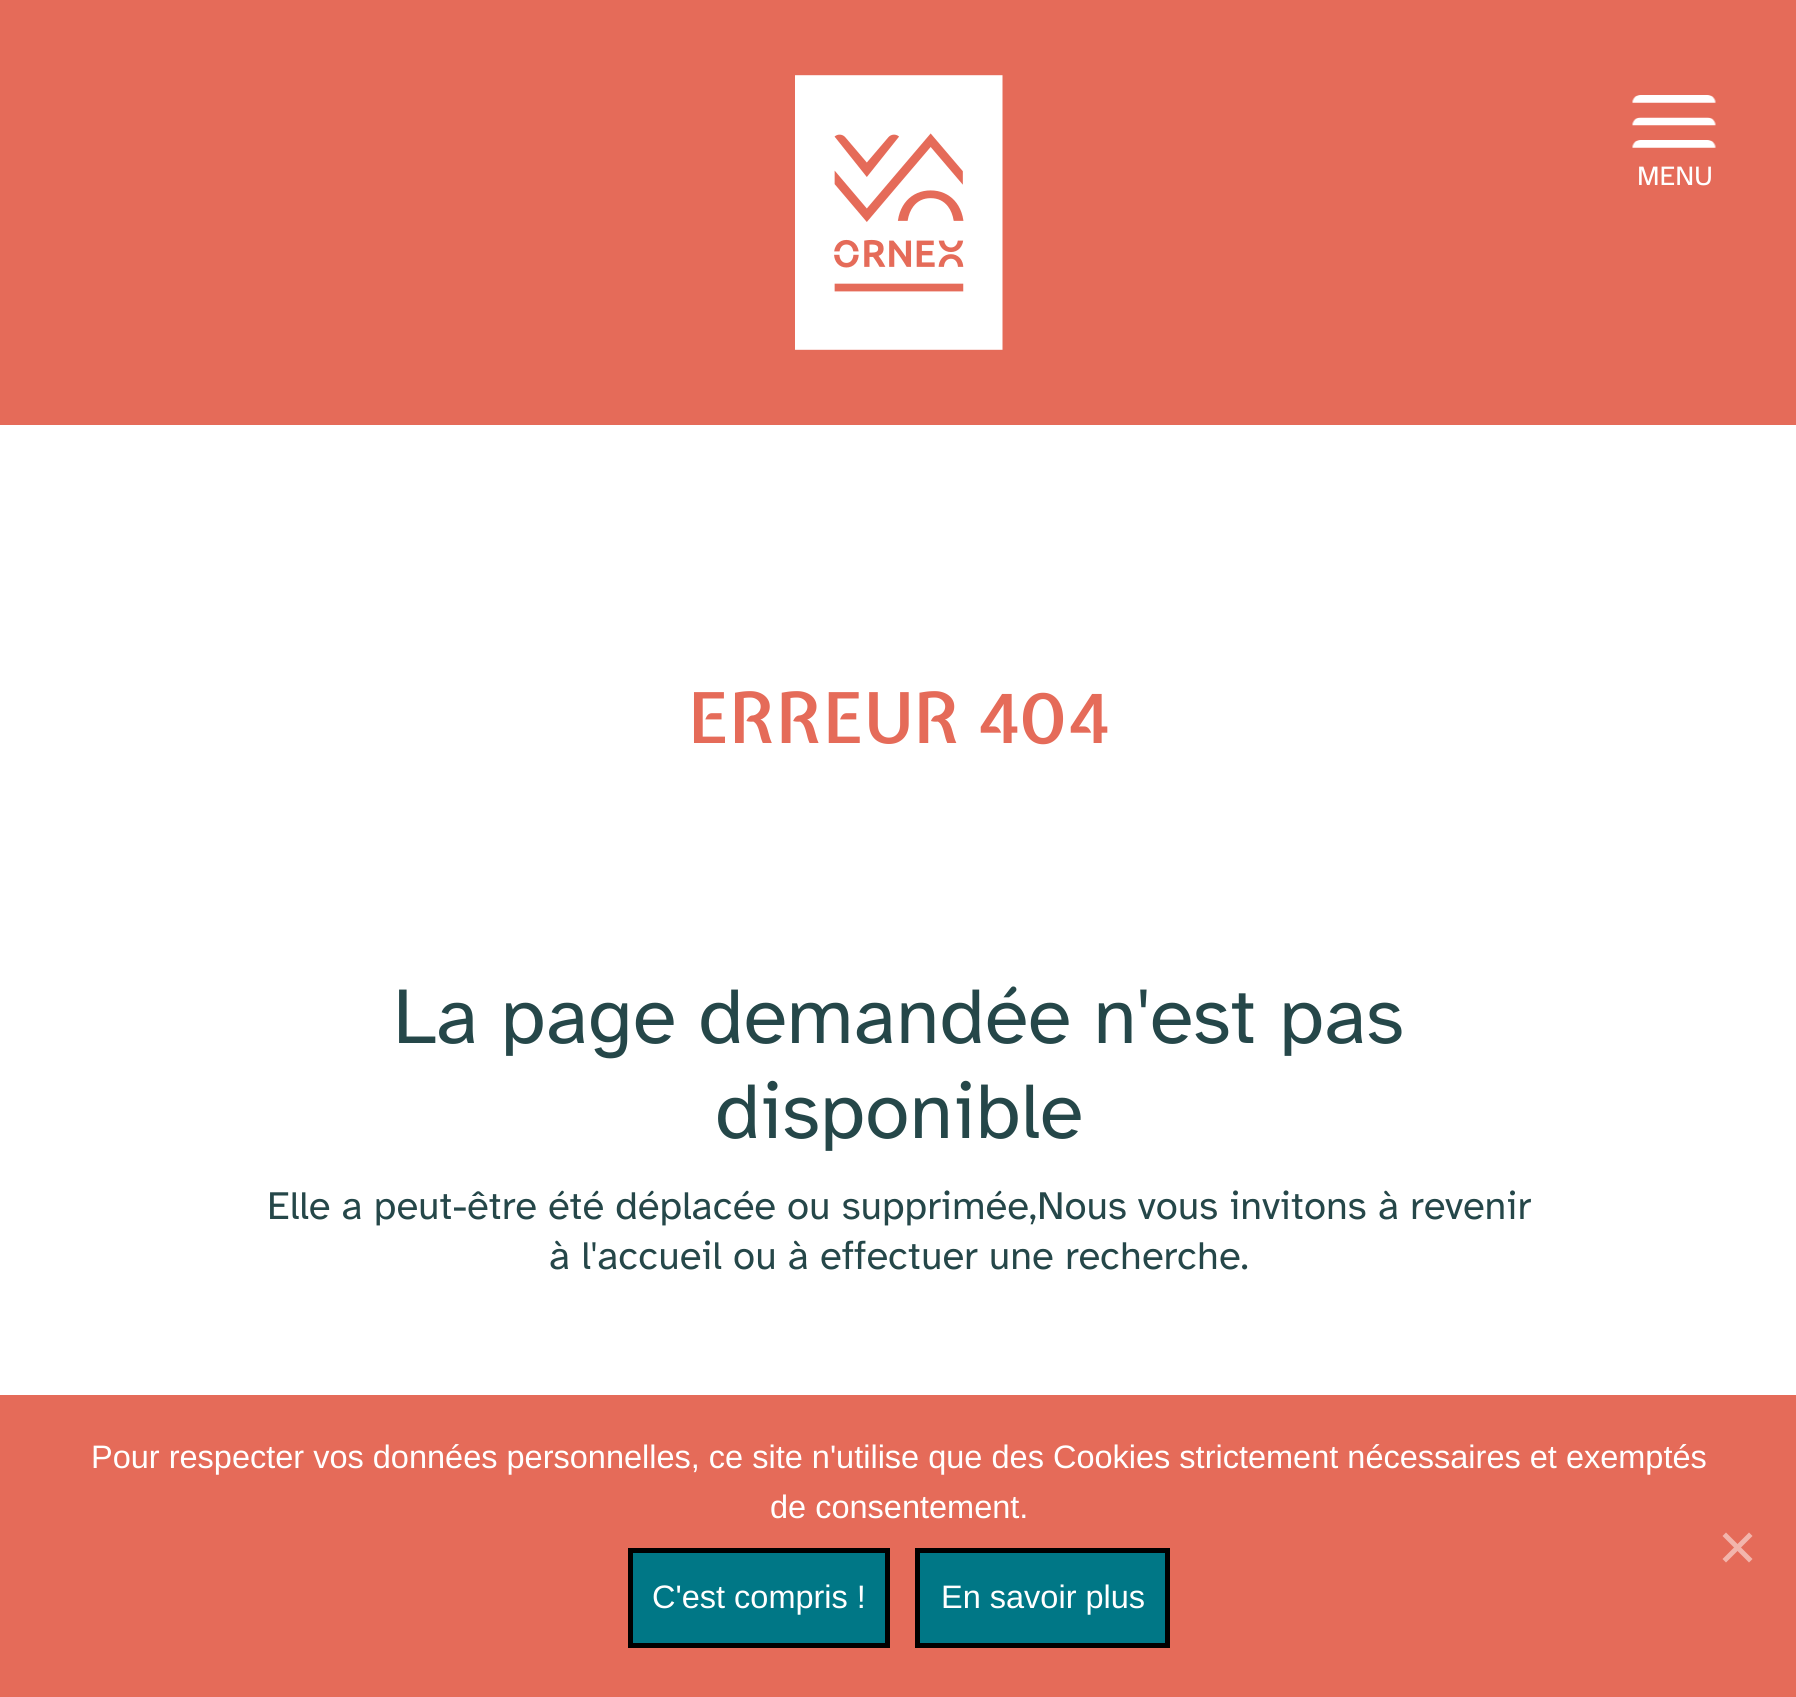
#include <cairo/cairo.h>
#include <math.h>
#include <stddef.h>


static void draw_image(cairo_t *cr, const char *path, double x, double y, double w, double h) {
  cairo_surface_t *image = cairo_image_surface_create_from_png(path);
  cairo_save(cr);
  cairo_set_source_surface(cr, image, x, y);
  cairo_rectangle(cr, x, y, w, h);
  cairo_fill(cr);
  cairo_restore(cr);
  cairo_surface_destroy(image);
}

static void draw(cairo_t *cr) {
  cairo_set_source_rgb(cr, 1, 1, 1);
  cairo_paint(cr);
  cairo_set_source_rgb(cr, 229 / 255.0, 107 / 255.0, 89 / 255.0);
  cairo_rectangle(cr, 0, 0, 1796, 425);
  cairo_fill(cr);
  draw_image(cr, "images/1.png", 795, 75, 208, 275);
  draw_image(cr, "images/2.png", 1632, 95, 84, 8);
  draw_image(cr, "images/3.png", 1632, 117, 84, 9);
  draw_image(cr, "images/2.png", 1632, 140, 84, 8);
  cairo_rectangle(cr, 0, 1395, 1796, 302);
  cairo_fill(cr);
  cairo_set_source_rgb(cr, 242 / 255.0, 181 / 255.0, 172 / 255.0);
  cairo_new_path(cr);
  cairo_move_to(cr, 1749, 1532.5);
  cairo_line_to(cr, 1752.5, 1536);
  cairo_line_to(cr, 1726, 1562.5);
  cairo_line_to(cr, 1722.5, 1559);
  cairo_close_path(cr);
  cairo_fill(cr);
  cairo_new_path(cr);
  cairo_move_to(cr, 1722.5, 1536);
  cairo_line_to(cr, 1726, 1532.5);
  cairo_line_to(cr, 1752.5, 1559);
  cairo_line_to(cr, 1749, 1562.5);
  cairo_close_path(cr);
  cairo_fill(cr);
  cairo_set_source_rgb(cr, 0, 119 / 255.0, 134 / 255.0);
  cairo_rectangle(cr, 630.5, 1550.5, 257, 95);
  cairo_fill_preserve(cr);
  cairo_set_source_rgb(cr, 0, 0, 0);
  cairo_set_line_width(cr, 5);
  cairo_stroke(cr);
  cairo_set_source_rgb(cr, 0, 119 / 255.0, 134 / 255.0);
  cairo_rectangle(cr, 917.5, 1550.5, 250, 95);
  cairo_fill_preserve(cr);
  cairo_set_source_rgb(cr, 0, 0, 0);
  cairo_stroke(cr);
  cairo_select_font_face(cr, "Atkinson Hyperlegible", CAIRO_FONT_SLANT_NORMAL, CAIRO_FONT_WEIGHT_NORMAL);
  cairo_set_font_size(cr, 27.5);
  cairo_set_source_rgb(cr, 1, 1, 1);
  cairo_move_to(cr, 1637, 185);
  cairo_show_text(cr, "MENU");
  cairo_select_font_face(cr, "Expletus Sans SemiBold", CAIRO_FONT_SLANT_NORMAL, CAIRO_FONT_WEIGHT_NORMAL);
  cairo_set_font_size(cr, 70);
  cairo_set_source_rgb(cr, 229 / 255.0, 107 / 255.0, 89 / 255.0);
  cairo_move_to(cr, 688, 743);
  cairo_show_text(cr, "ERREUR 404");
  cairo_select_font_face(cr, "Atkinson Hyperlegible", CAIRO_FONT_SLANT_NORMAL, CAIRO_FONT_WEIGHT_NORMAL);
  cairo_set_font_size(cr, 80);
  cairo_set_source_rgb(cr, 37 / 255.0, 71 / 255.0, 73 / 255.0);
  cairo_move_to(cr, 393, 1043);
  cairo_show_text(cr, "La page demandée n'est pas");
  cairo_move_to(cr, 715, 1138);
  cairo_show_text(cr, "disponible");
  cairo_set_font_size(cr, 40);
  cairo_move_to(cr, 267, 1219);
  cairo_show_text(cr, "Elle a peut-être été déplacée ou supprimée,Nous vous invitons à revenir");
  cairo_move_to(cr, 549, 1269);
  cairo_show_text(cr, "à l'accueil ou à effectuer une recherche.");
  cairo_select_font_face(cr, "Liberation Sans", CAIRO_FONT_SLANT_NORMAL, CAIRO_FONT_WEIGHT_NORMAL);
  cairo_set_font_size(cr, 32.5);
  cairo_set_source_rgb(cr, 1, 1, 1);
  cairo_move_to(cr, 91, 1468);
  cairo_show_text(cr, "Pour respecter vos données personnelles, ce site n'utilise que des Cookies strictement nécessaires et exemptés");
  cairo_move_to(cr, 770, 1518);
  cairo_show_text(cr, "de consentement.");
  cairo_move_to(cr, 652, 1608);
  cairo_show_text(cr, "C'est compris !");
  cairo_move_to(cr, 941, 1608);
  cairo_show_text(cr, "En savoir plus");
}

int main(void) {
  cairo_surface_t *surface = cairo_image_surface_create(CAIRO_FORMAT_RGB24, 1796, 1697);
  cairo_t *cr = cairo_create(surface);
  cairo_font_options_t *options = cairo_font_options_create();
  cairo_font_options_set_hint_metrics(options, CAIRO_HINT_METRICS_OFF);
  cairo_font_options_set_hint_style(options, CAIRO_HINT_STYLE_NONE);
  cairo_set_font_options(cr, options);
  cairo_set_miter_limit(cr, 4);
  draw(cr);
  cairo_surface_write_to_png(surface, "out.png");
  cairo_font_options_destroy(options);
  cairo_destroy(cr);
  cairo_surface_destroy(surface);
  return 0;
}
